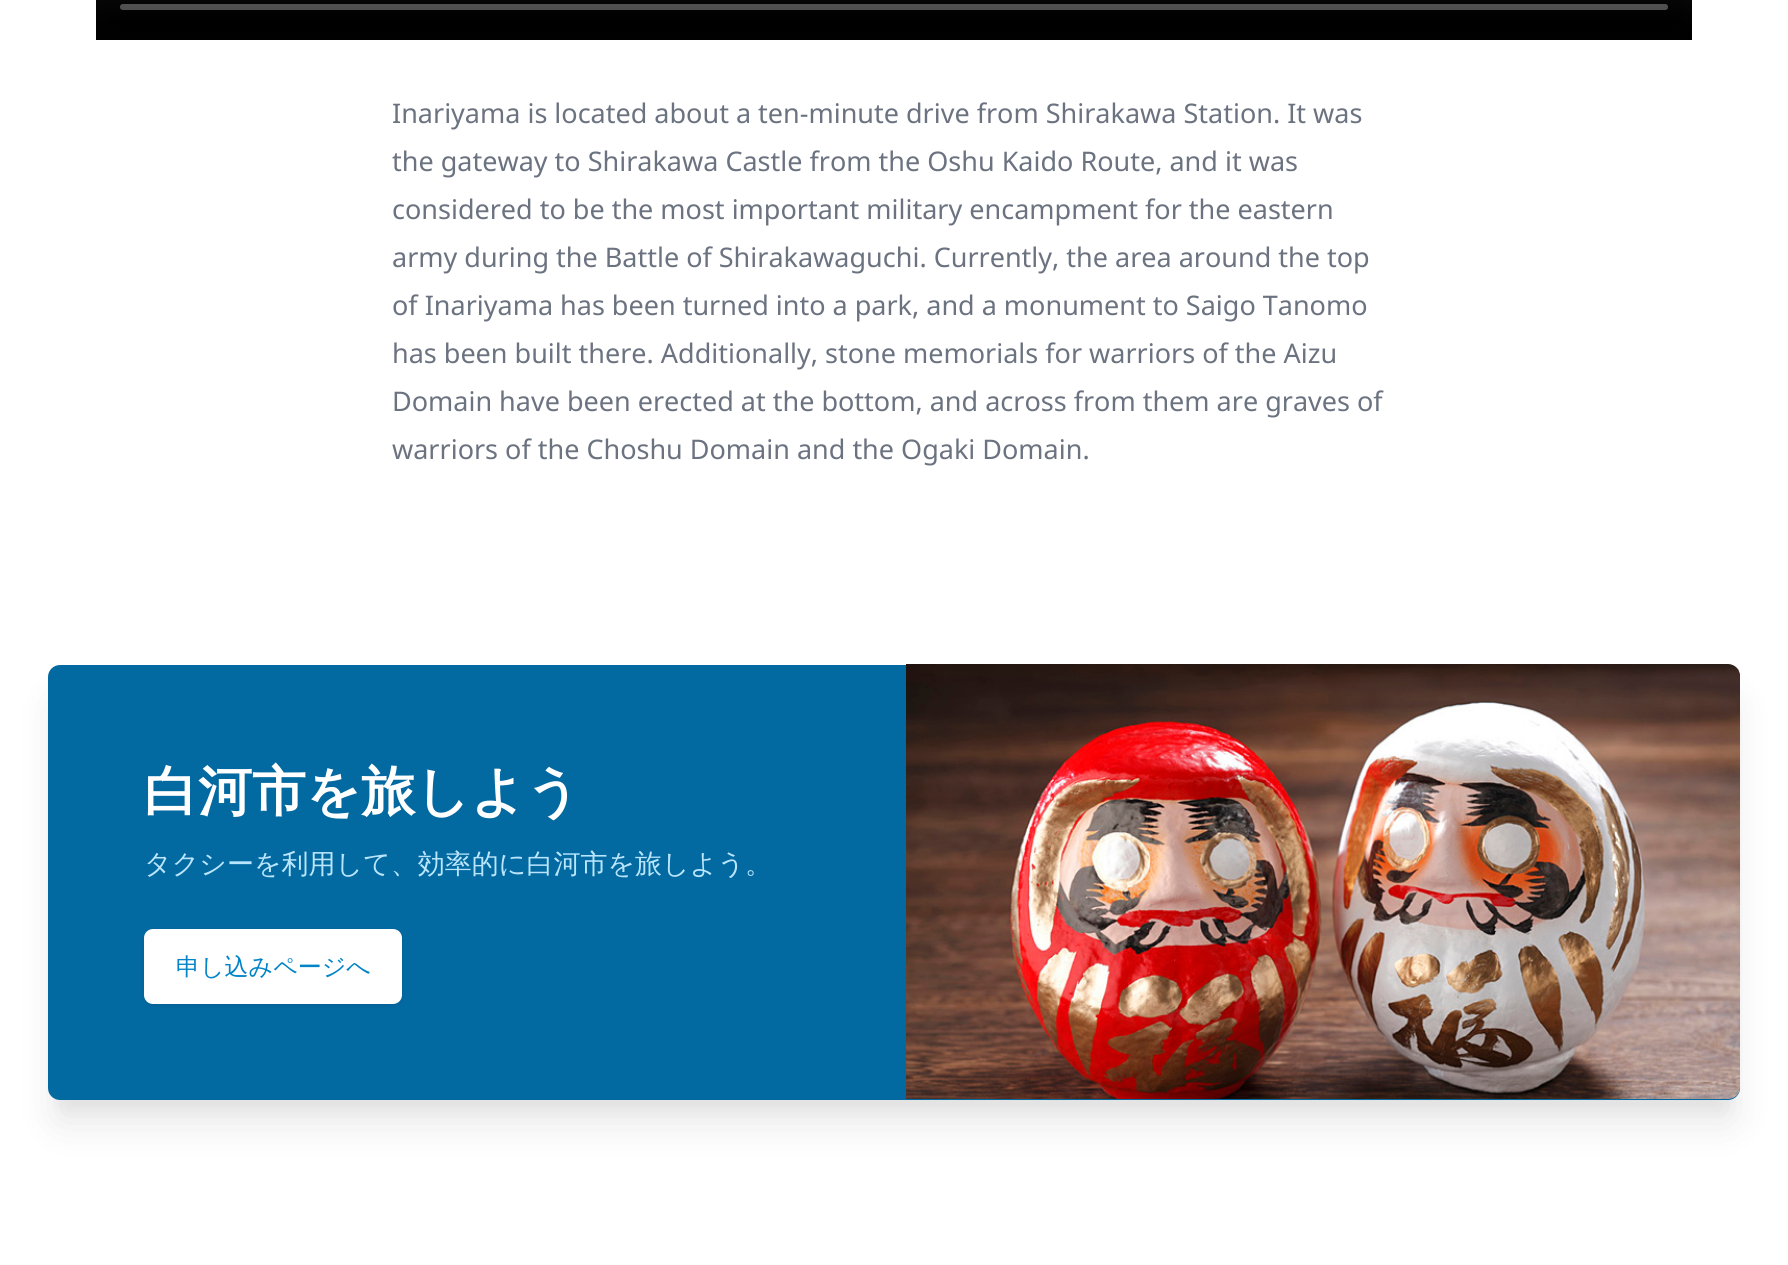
#include <cairo/cairo.h>
#include <math.h>
#include <stddef.h>


static void rounded_rect(cairo_t *cr, double x, double y, double w, double h, double r) {
  cairo_new_sub_path(cr);
  cairo_arc(cr, x + w - r, y + h - r, r, 0, M_PI / 2);
  cairo_arc(cr, x + r, y + h - r, r, M_PI / 2, M_PI);
  cairo_arc(cr, x + r, y + r, r, M_PI, 1.5 * M_PI);
  cairo_arc(cr, x + w - r, y + r, r, 1.5 * M_PI, 2 * M_PI);
  cairo_close_path(cr);
}

static void draw_shadow(cairo_t *cr, double x, double y, double w, double h, double r, double blur, double alpha) {
  cairo_push_group_with_content(cr, CAIRO_CONTENT_ALPHA);
  cairo_set_operator(cr, CAIRO_OPERATOR_SOURCE);
  for (int i = 15; i >= -15 && fmin(w, h) + blur * i / 3 > 0; i -= 2) {
    double e = blur * i / 6;
    cairo_set_source_rgba(cr, 0, 0, 0, alpha * erfc((i - 1) / 8.5) / 2);
    rounded_rect(cr, x - e, y - e, w + 2 * e, h + 2 * e, fmax(0, fmin(r + e + blur * .6, fmin(w, h) / 2 + e)));
    cairo_fill(cr);
  }
  cairo_pattern_t *soft = cairo_pop_group(cr);
  cairo_mask(cr, soft);
  cairo_pattern_destroy(soft);
}

static void draw_image(cairo_t *cr, const char *path, double x, double y, double w, double h) {
  cairo_surface_t *image = cairo_image_surface_create_from_png(path);
  cairo_save(cr);
  cairo_set_source_surface(cr, image, x, y);
  cairo_rectangle(cr, x, y, w, h);
  cairo_fill(cr);
  cairo_restore(cr);
  cairo_surface_destroy(image);
}

static void draw(cairo_t *cr) {
  cairo_set_source_rgb(cr, 1, 1, 1);
  cairo_paint(cr);
  draw_image(cr, "images/1.png", 96, 0, 1596, 40);
  cairo_set_source_rgb(cr, 0, 0, 0);
  draw_shadow(cr, 56, 687, 1677, 420, 5, 7.5, 0.04);
  draw_shadow(cr, 56, 702, 1677, 420, 5, 19, 0.1);
  cairo_set_source_rgb(cr, 3 / 255.0, 105 / 255.0, 161 / 255.0);
  rounded_rect(cr, 48, 665, 1692, 435, 12);
  cairo_fill(cr);
  cairo_set_source_rgb(cr, 0, 0, 0);
  draw_shadow(cr, 144, 930, 258, 75, 9, 2, 0.1);
  cairo_set_source_rgb(cr, 1, 1, 1);
  rounded_rect(cr, 144, 929, 258, 75, 9);
  cairo_fill(cr);
  draw_image(cr, "images/2.png", 906, 664, 834, 435);
  cairo_select_font_face(cr, "Noto Sans", CAIRO_FONT_SLANT_NORMAL, CAIRO_FONT_WEIGHT_NORMAL);
  cairo_set_font_size(cr, 27);
  cairo_set_source_rgb(cr, 107 / 255.0, 114 / 255.0, 128 / 255.0);
  cairo_move_to(cr, 392, 123);
  cairo_show_text(cr, "Inariyama is located about a ten-minute drive from Shirakawa Station. It was");
  cairo_move_to(cr, 392, 171);
  cairo_show_text(cr, "the gateway to Shirakawa Castle from the Oshu Kaido Route, and it was");
  cairo_move_to(cr, 392, 219);
  cairo_show_text(cr, "considered to be the most important military encampment for the eastern");
  cairo_move_to(cr, 392, 267);
  cairo_show_text(cr, "army during the Battle of Shirakawaguchi. Currently, the area around the top");
  cairo_move_to(cr, 392, 315);
  cairo_show_text(cr, "of Inariyama has been turned into a park, and a monument to Saigo Tanomo");
  cairo_move_to(cr, 392, 363);
  cairo_show_text(cr, "has been built there. Additionally, stone memorials for warriors of the Aizu");
  cairo_move_to(cr, 392, 411);
  cairo_show_text(cr, "Domain have been erected at the bottom, and across from them are graves of");
  cairo_move_to(cr, 392, 459);
  cairo_show_text(cr, "warriors of the Choshu Domain and the Ogaki Domain.");
  cairo_select_font_face(cr, "WenQuanYi Zen Hei", CAIRO_FONT_SLANT_NORMAL, CAIRO_FONT_WEIGHT_BOLD);
  cairo_set_font_size(cr, 54);
  cairo_set_source_rgb(cr, 1, 1, 1);
  cairo_move_to(cr, 144, 810);
  cairo_show_text(cr, "白河市を旅しよう");
  cairo_select_font_face(cr, "WenQuanYi Zen Hei Medium", CAIRO_FONT_SLANT_NORMAL, CAIRO_FONT_WEIGHT_NORMAL);
  cairo_set_font_size(cr, 27);
  cairo_set_source_rgb(cr, 186 / 255.0, 230 / 255.0, 253 / 255.0);
  cairo_move_to(cr, 144, 873);
  cairo_show_text(cr, "タクシーを利用して、効率的に白河市を旅しよう。");
  cairo_set_font_size(cr, 24);
  cairo_set_source_rgb(cr, 2 / 255.0, 132 / 255.0, 199 / 255.0);
  cairo_move_to(cr, 176, 975);
  cairo_show_text(cr, "申し込みページへ");
}

int main(void) {
  cairo_surface_t *surface = cairo_image_surface_create(CAIRO_FORMAT_RGB24, 1788, 1265);
  cairo_t *cr = cairo_create(surface);
  cairo_font_options_t *options = cairo_font_options_create();
  cairo_font_options_set_hint_metrics(options, CAIRO_HINT_METRICS_OFF);
  cairo_font_options_set_hint_style(options, CAIRO_HINT_STYLE_NONE);
  cairo_set_font_options(cr, options);
  cairo_set_miter_limit(cr, 4);
  draw(cr);
  cairo_surface_write_to_png(surface, "out.png");
  cairo_font_options_destroy(options);
  cairo_destroy(cr);
  cairo_surface_destroy(surface);
  return 0;
}
